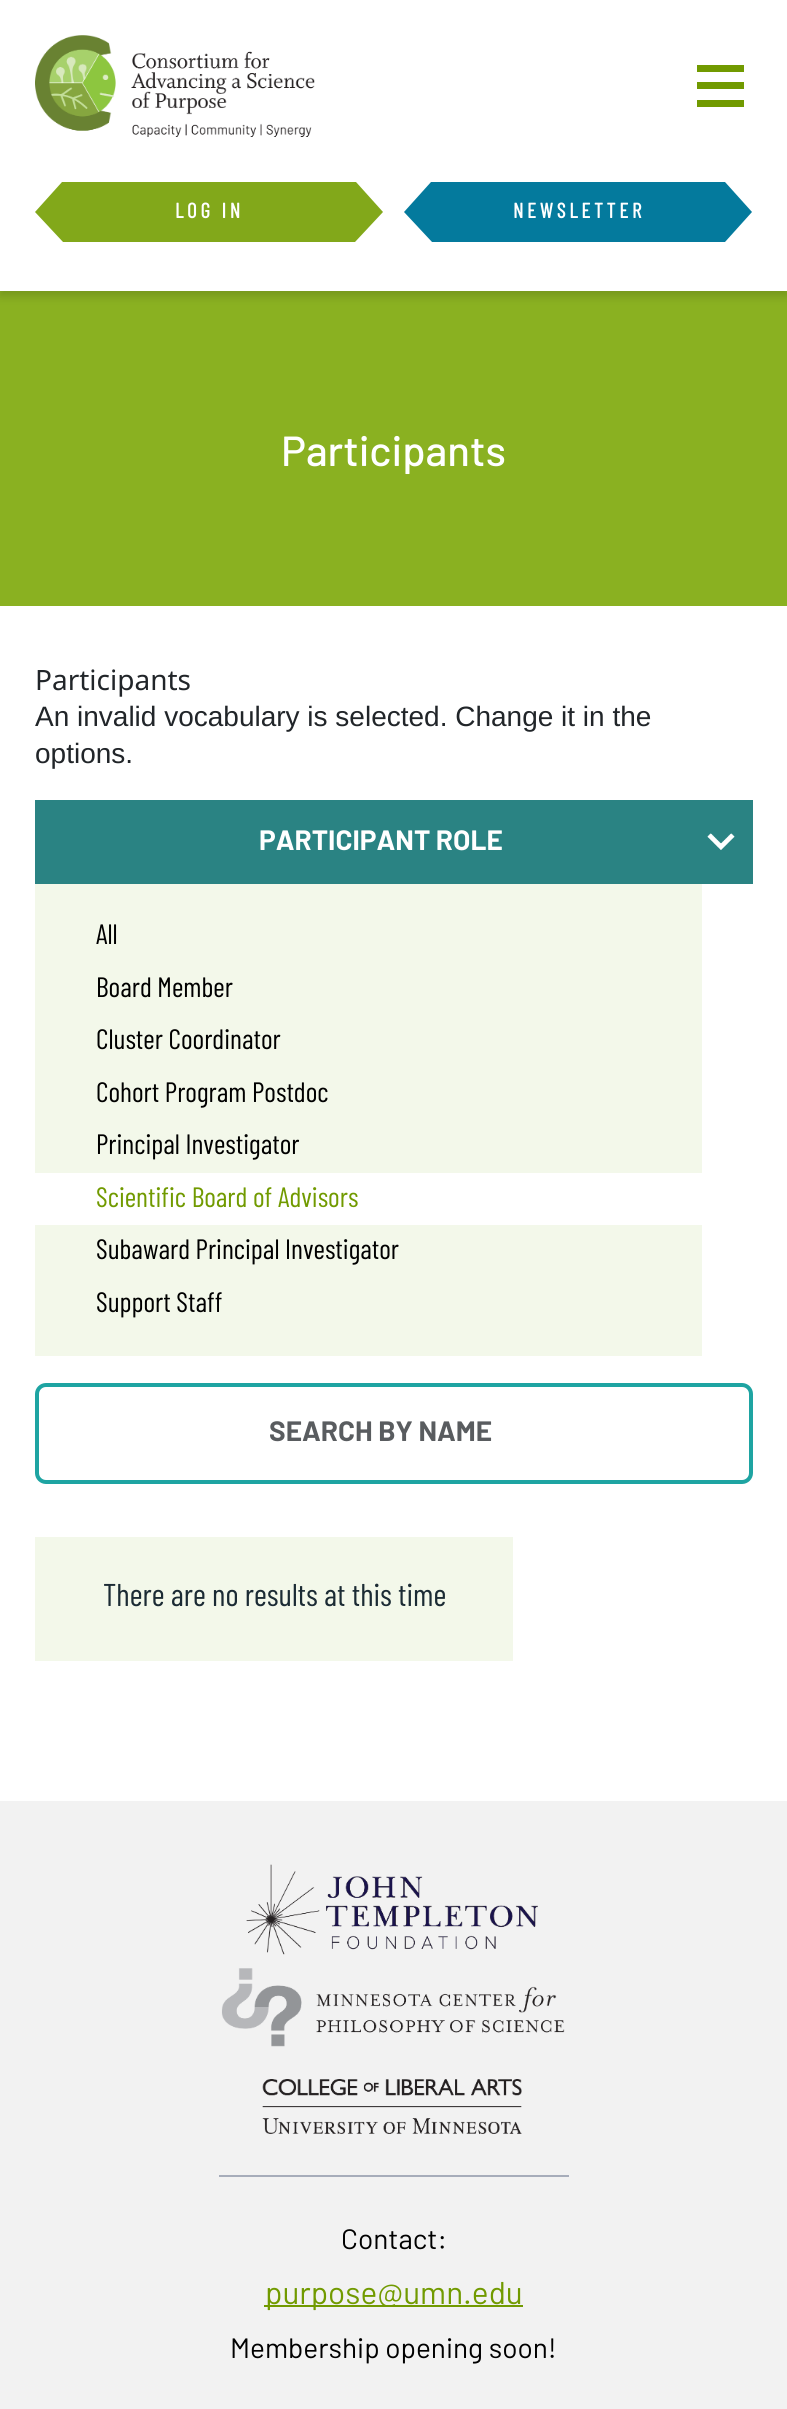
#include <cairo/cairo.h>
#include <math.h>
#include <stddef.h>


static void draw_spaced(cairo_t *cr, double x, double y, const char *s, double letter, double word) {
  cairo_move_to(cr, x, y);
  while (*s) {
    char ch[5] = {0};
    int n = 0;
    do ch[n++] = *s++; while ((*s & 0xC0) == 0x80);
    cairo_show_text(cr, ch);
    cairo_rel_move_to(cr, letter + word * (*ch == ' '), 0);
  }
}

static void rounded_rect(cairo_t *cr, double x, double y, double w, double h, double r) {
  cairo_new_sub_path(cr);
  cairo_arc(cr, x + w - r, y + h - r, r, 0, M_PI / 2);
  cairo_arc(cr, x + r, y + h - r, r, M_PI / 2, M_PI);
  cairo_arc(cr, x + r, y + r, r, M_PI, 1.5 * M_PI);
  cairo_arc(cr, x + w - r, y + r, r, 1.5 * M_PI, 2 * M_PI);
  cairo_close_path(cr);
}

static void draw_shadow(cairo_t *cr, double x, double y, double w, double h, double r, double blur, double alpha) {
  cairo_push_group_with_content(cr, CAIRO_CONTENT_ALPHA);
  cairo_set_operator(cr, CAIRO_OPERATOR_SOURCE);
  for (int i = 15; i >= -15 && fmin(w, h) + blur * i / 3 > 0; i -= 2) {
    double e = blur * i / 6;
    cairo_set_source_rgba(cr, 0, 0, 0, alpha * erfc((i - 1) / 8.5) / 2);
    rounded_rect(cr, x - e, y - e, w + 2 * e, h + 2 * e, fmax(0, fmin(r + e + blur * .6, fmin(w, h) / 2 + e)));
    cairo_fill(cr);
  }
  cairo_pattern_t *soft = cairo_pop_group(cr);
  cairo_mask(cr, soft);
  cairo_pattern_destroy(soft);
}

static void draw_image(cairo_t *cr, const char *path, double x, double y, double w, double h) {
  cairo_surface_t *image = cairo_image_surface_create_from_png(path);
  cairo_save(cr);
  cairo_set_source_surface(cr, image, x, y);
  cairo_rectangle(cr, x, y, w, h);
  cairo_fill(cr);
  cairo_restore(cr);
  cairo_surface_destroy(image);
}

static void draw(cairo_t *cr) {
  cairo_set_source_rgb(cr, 1, 1, 1);
  cairo_paint(cr);
  cairo_set_source_rgb(cr, 138 / 255.0, 177 / 255.0, 33 / 255.0);
  cairo_rectangle(cr, 0, 291, 787, 315);
  cairo_fill(cr);
  cairo_set_source_rgb(cr, 0, 0, 0);
  draw_shadow(cr, 0, 5, 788, 291, 0, 5, 0.16);
  cairo_set_source_rgb(cr, 1, 1, 1);
  cairo_rectangle(cr, 0, 0, 787, 291);
  cairo_fill(cr);
  draw_image(cr, "images/1.png", 35, 35, 280, 102);
  cairo_set_source_rgb(cr, 113 / 255.0, 154 / 255.0, 0);
  cairo_rectangle(cr, 697, 65, 47, 7);
  cairo_fill(cr);
  cairo_rectangle(cr, 697, 82, 47, 7);
  cairo_fill(cr);
  cairo_rectangle(cr, 697, 100, 47, 7);
  cairo_fill(cr);
  cairo_set_source_rgb(cr, 130 / 255.0, 168 / 255.0, 26 / 255.0);
  cairo_new_path(cr);
  cairo_move_to(cr, 383, 212);
  cairo_line_to(cr, 355, 242);
  cairo_line_to(cr, 63, 242);
  cairo_line_to(cr, 35, 212);
  cairo_line_to(cr, 62, 182);
  cairo_line_to(cr, 356, 182);
  cairo_close_path(cr);
  cairo_fill(cr);
  cairo_set_source_rgb(cr, 4 / 255.0, 122 / 255.0, 157 / 255.0);
  cairo_new_path(cr);
  cairo_move_to(cr, 725, 182);
  cairo_line_to(cr, 752, 212);
  cairo_line_to(cr, 725, 242);
  cairo_line_to(cr, 432, 242);
  cairo_line_to(cr, 404, 212);
  cairo_line_to(cr, 431, 182);
  cairo_close_path(cr);
  cairo_fill(cr);
  cairo_set_source_rgb(cr, 42 / 255.0, 131 / 255.0, 131 / 255.0);
  cairo_rectangle(cr, 35, 800, 718, 84);
  cairo_fill(cr);
  draw_image(cr, "images/2.png", 707, 833, 28, 17);
  cairo_set_source_rgb(cr, 243 / 255.0, 248 / 255.0, 234 / 255.0);
  cairo_rectangle(cr, 35, 884, 667, 472);
  cairo_fill(cr);
  cairo_set_source_rgb(cr, 1, 1, 1);
  cairo_rectangle(cr, 35, 1173, 667, 52);
  cairo_fill(cr);
  rounded_rect(cr, 37, 1385, 714, 97, 9);
  cairo_set_source_rgb(cr, 30 / 255.0, 164 / 255.0, 162 / 255.0);
  cairo_set_line_width(cr, 4);
  cairo_stroke(cr);
  cairo_set_source_rgb(cr, 243 / 255.0, 248 / 255.0, 234 / 255.0);
  cairo_rectangle(cr, 35, 1537, 478, 124);
  cairo_fill(cr);
  cairo_set_source_rgb(cr, 242 / 255.0, 242 / 255.0, 242 / 255.0);
  cairo_rectangle(cr, 0, 1801, 787, 608);
  cairo_fill(cr);
  draw_image(cr, "images/3.png", 246, 1864, 292, 91);
  draw_image(cr, "images/4.png", 221, 1968, 344, 79);
  draw_image(cr, "images/5.png", 262, 2079, 260, 55);
  cairo_set_source_rgb(cr, 167 / 255.0, 173 / 255.0, 186 / 255.0);
  cairo_rectangle(cr, 219, 2175, 350, 2);
  cairo_fill(cr);
  cairo_set_source_rgb(cr, 113 / 255.0, 154 / 255.0, 0);
  cairo_rectangle(cr, 264, 2305, 259, 2);
  cairo_fill(cr);
  cairo_select_font_face(cr, "Barlow Condensed", CAIRO_FONT_SLANT_NORMAL, CAIRO_FONT_WEIGHT_BOLD);
  cairo_set_font_size(cr, 21);
  cairo_set_source_rgb(cr, 1, 1, 1);
  draw_spaced(cr, 175, 218, "LOG IN", 3.75, 0);
  draw_spaced(cr, 513, 218, "NEWSLETTER", 3.75, 0);
  cairo_select_font_face(cr, "Barlow Medium", CAIRO_FONT_SLANT_NORMAL, CAIRO_FONT_WEIGHT_NORMAL);
  cairo_set_font_size(cr, 42);
  cairo_move_to(cr, 281, 466);
  cairo_show_text(cr, "Participants");
  cairo_select_font_face(cr, "Noto Sans", CAIRO_FONT_SLANT_NORMAL, CAIRO_FONT_WEIGHT_NORMAL);
  cairo_set_font_size(cr, 28);
  cairo_set_source_rgb(cr, 33 / 255.0, 37 / 255.0, 41 / 255.0);
  cairo_move_to(cr, 35, 690);
  cairo_show_text(cr, "Participants");
  cairo_select_font_face(cr, "Liberation Sans", CAIRO_FONT_SLANT_NORMAL, CAIRO_FONT_WEIGHT_NORMAL);
  cairo_move_to(cr, 35, 726);
  cairo_show_text(cr, "An invalid vocabulary is selected. Change it in the");
  cairo_move_to(cr, 35, 763);
  cairo_show_text(cr, "options.");
  cairo_select_font_face(cr, "Barlow", CAIRO_FONT_SLANT_NORMAL, CAIRO_FONT_WEIGHT_BOLD);
  cairo_set_source_rgb(cr, 1, 1, 1);
  cairo_move_to(cr, 259, 850);
  cairo_show_text(cr, "PARTICIPANT ROLE");
  cairo_select_font_face(cr, "Barlow Condensed", CAIRO_FONT_SLANT_NORMAL, CAIRO_FONT_WEIGHT_NORMAL);
  cairo_set_source_rgb(cr, 0, 0, 0);
  cairo_move_to(cr, 96, 944);
  cairo_show_text(cr, "All");
  cairo_move_to(cr, 96, 997);
  cairo_show_text(cr, "Board Member");
  cairo_move_to(cr, 96, 1049);
  cairo_show_text(cr, "Cluster Coordinator");
  cairo_move_to(cr, 96, 1102);
  cairo_show_text(cr, "Cohort Program Postdoc");
  cairo_move_to(cr, 96, 1154);
  cairo_show_text(cr, "Principal Investigator");
  cairo_set_source_rgb(cr, 113 / 255.0, 154 / 255.0, 0);
  cairo_move_to(cr, 96, 1207);
  cairo_show_text(cr, "Scientific Board of Advisors");
  cairo_set_source_rgb(cr, 0, 0, 0);
  cairo_move_to(cr, 96, 1259);
  cairo_show_text(cr, "Subaward Principal Investigator");
  cairo_move_to(cr, 96, 1312);
  cairo_show_text(cr, "Support Staff");
  cairo_select_font_face(cr, "Barlow", CAIRO_FONT_SLANT_NORMAL, CAIRO_FONT_WEIGHT_BOLD);
  cairo_set_source_rgb(cr, 89 / 255.0, 92 / 255.0, 95 / 255.0);
  cairo_move_to(cr, 269, 1441);
  cairo_show_text(cr, "SEARCH BY NAME");
  cairo_select_font_face(cr, "Barlow Condensed", CAIRO_FONT_SLANT_NORMAL, CAIRO_FONT_WEIGHT_NORMAL);
  cairo_set_font_size(cr, 31.5);
  cairo_set_source_rgb(cr, 27 / 255.0, 43 / 255.0, 52 / 255.0);
  cairo_move_to(cr, 103, 1606);
  cairo_show_text(cr, "There are no results at this time");
  cairo_select_font_face(cr, "Barlow", CAIRO_FONT_SLANT_NORMAL, CAIRO_FONT_WEIGHT_NORMAL);
  cairo_set_font_size(cr, 28);
  cairo_set_source_rgb(cr, 0, 0, 0);
  cairo_move_to(cr, 341, 2249);
  cairo_show_text(cr, "Contact:");
  cairo_set_font_size(cr, 31.5);
  cairo_set_source_rgb(cr, 113 / 255.0, 154 / 255.0, 0);
  cairo_move_to(cr, 265, 2304);
  cairo_show_text(cr, "purpose@umn.edu");
  cairo_set_font_size(cr, 28);
  cairo_set_source_rgb(cr, 0, 0, 0);
  cairo_move_to(cr, 230, 2358);
  cairo_show_text(cr, "Membership opening soon!");
}

int main(void) {
  cairo_surface_t *surface = cairo_image_surface_create(CAIRO_FORMAT_RGB24, 787, 2409);
  cairo_t *cr = cairo_create(surface);
  cairo_font_options_t *options = cairo_font_options_create();
  cairo_font_options_set_hint_metrics(options, CAIRO_HINT_METRICS_OFF);
  cairo_font_options_set_hint_style(options, CAIRO_HINT_STYLE_NONE);
  cairo_set_font_options(cr, options);
  cairo_set_miter_limit(cr, 4);
  draw(cr);
  cairo_surface_write_to_png(surface, "out.png");
  cairo_font_options_destroy(options);
  cairo_destroy(cr);
  cairo_surface_destroy(surface);
  return 0;
}
